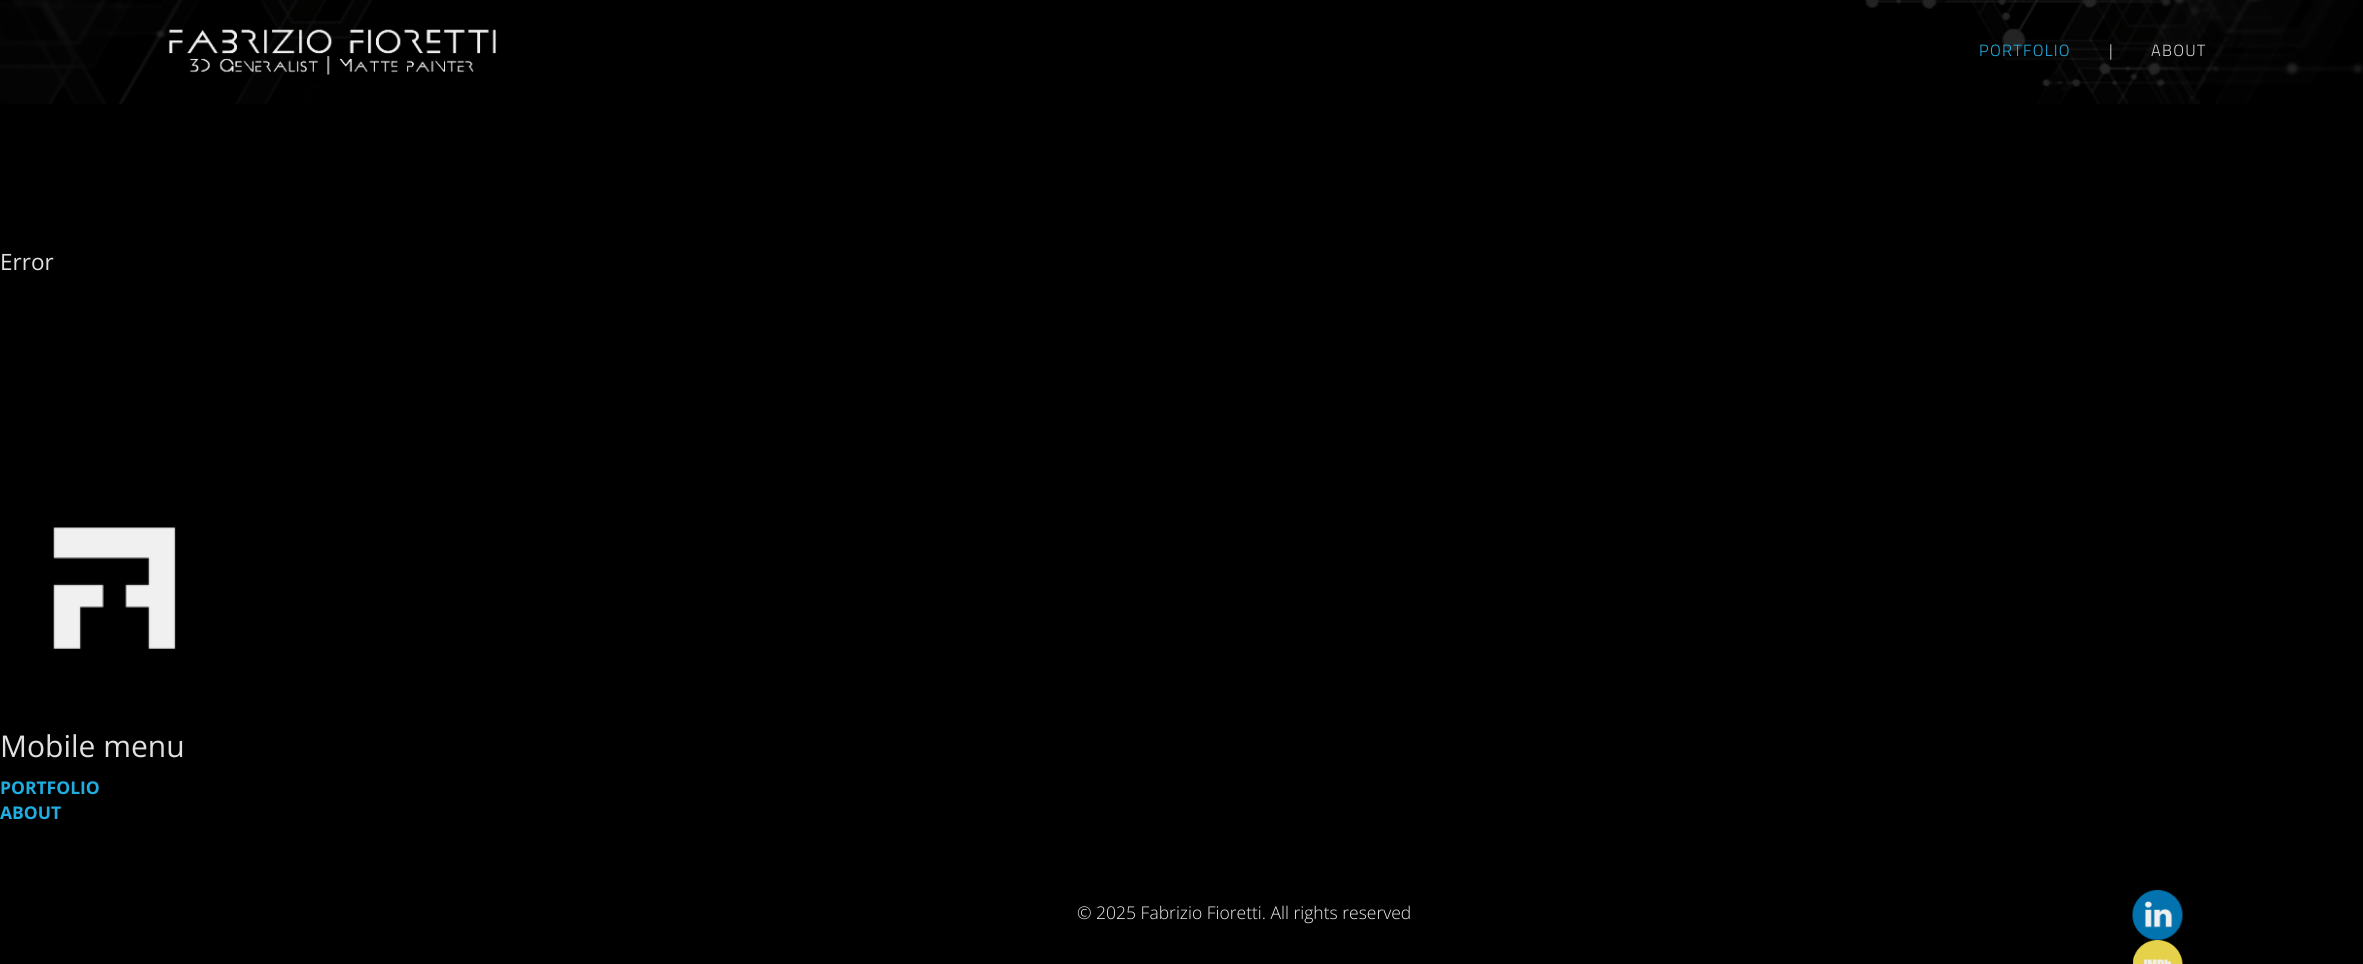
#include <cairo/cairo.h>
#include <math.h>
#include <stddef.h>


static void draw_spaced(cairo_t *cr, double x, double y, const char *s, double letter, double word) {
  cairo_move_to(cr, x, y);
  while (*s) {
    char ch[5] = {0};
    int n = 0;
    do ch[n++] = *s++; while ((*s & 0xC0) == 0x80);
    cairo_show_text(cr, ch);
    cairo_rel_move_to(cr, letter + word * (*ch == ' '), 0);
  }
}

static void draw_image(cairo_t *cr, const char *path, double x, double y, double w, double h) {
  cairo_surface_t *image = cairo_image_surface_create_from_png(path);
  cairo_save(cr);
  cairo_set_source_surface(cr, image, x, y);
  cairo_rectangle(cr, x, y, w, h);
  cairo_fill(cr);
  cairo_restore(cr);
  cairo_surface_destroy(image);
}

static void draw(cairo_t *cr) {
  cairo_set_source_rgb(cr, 0, 0, 0);
  cairo_paint(cr);
  draw_image(cr, "images/1.png", 0, 0, 2363, 104);
  draw_image(cr, "images/2.png", 168, 29, 329, 46);
  draw_image(cr, "images/3.png", 53, 527, 123, 122);
  draw_image(cr, "images/4.png", 2132, 890, 51, 50);
  draw_image(cr, "images/5.png", 2133, 940, 50, 24);
  cairo_select_font_face(cr, "Titillium Web Light", CAIRO_FONT_SLANT_NORMAL, CAIRO_FONT_WEIGHT_NORMAL);
  cairo_set_font_size(cr, 16.25);
  cairo_set_source_rgb(cr, 32 / 255.0, 173 / 255.0, 226 / 255.0);
  draw_spaced(cr, 1979, 56, "PORTFOLIO", 1.25, 0);
  cairo_set_source_rgb(cr, 208 / 255.0, 208 / 255.0, 208 / 255.0);
  draw_spaced(cr, 2109, 56, "|", 1.25, 0);
  draw_spaced(cr, 2151, 56, "ABOUT", 1.25, 0);
  cairo_select_font_face(cr, "Open Sans", CAIRO_FONT_SLANT_NORMAL, CAIRO_FONT_WEIGHT_NORMAL);
  cairo_set_font_size(cr, 22.5);
  cairo_set_source_rgb(cr, 224 / 255.0, 224 / 255.0, 224 / 255.0);
  cairo_move_to(cr, 0, 270);
  cairo_show_text(cr, "Error");
  cairo_select_font_face(cr, "Open Sans Light", CAIRO_FONT_SLANT_NORMAL, CAIRO_FONT_WEIGHT_NORMAL);
  cairo_set_font_size(cr, 17.5);
  cairo_set_source_rgb(cr, 240 / 255.0, 240 / 255.0, 240 / 255.0);
  cairo_move_to(cr, 1077, 919);
  cairo_show_text(cr, "© 2025 Fabrizio Fioretti. All rights reserved");
  cairo_select_font_face(cr, "Open Sans", CAIRO_FONT_SLANT_NORMAL, CAIRO_FONT_WEIGHT_NORMAL);
  cairo_set_font_size(cr, 30);
  cairo_set_source_rgb(cr, 224 / 255.0, 224 / 255.0, 224 / 255.0);
  cairo_move_to(cr, 0, 757);
  cairo_show_text(cr, "Mobile menu");
  cairo_select_font_face(cr, "Open Sans", CAIRO_FONT_SLANT_NORMAL, CAIRO_FONT_WEIGHT_BOLD);
  cairo_set_font_size(cr, 17.5);
  cairo_set_source_rgb(cr, 32 / 255.0, 173 / 255.0, 226 / 255.0);
  cairo_move_to(cr, 0, 794);
  cairo_show_text(cr, "PORTFOLIO");
  cairo_move_to(cr, 0, 819);
  cairo_show_text(cr, "ABOUT");
}

int main(void) {
  cairo_surface_t *surface = cairo_image_surface_create(CAIRO_FORMAT_RGB24, 2363, 964);
  cairo_t *cr = cairo_create(surface);
  cairo_font_options_t *options = cairo_font_options_create();
  cairo_font_options_set_hint_metrics(options, CAIRO_HINT_METRICS_OFF);
  cairo_font_options_set_hint_style(options, CAIRO_HINT_STYLE_NONE);
  cairo_set_font_options(cr, options);
  cairo_set_miter_limit(cr, 4);
  draw(cr);
  cairo_surface_write_to_png(surface, "out.png");
  cairo_font_options_destroy(options);
  cairo_destroy(cr);
  cairo_surface_destroy(surface);
  return 0;
}
